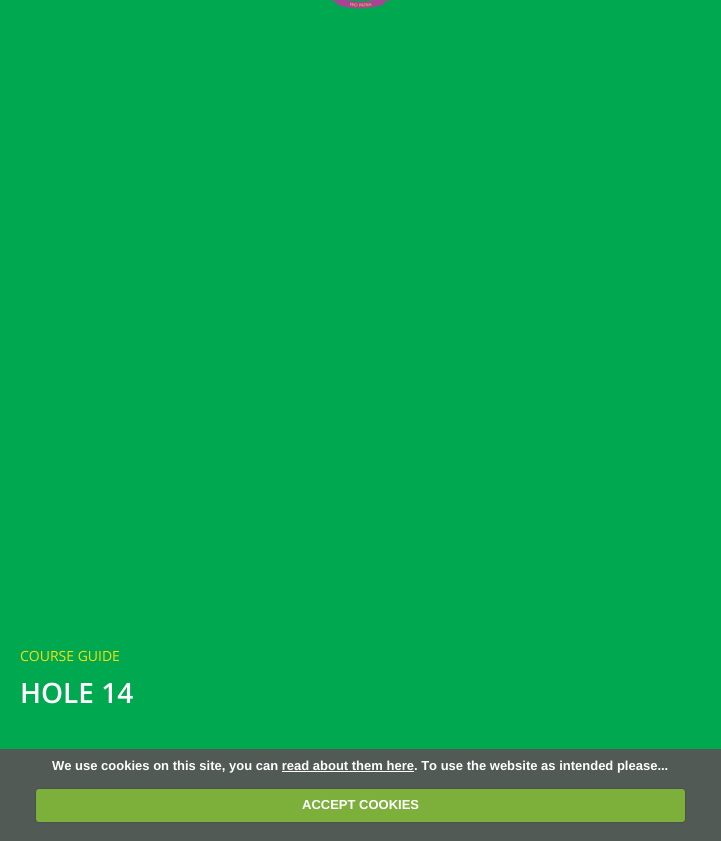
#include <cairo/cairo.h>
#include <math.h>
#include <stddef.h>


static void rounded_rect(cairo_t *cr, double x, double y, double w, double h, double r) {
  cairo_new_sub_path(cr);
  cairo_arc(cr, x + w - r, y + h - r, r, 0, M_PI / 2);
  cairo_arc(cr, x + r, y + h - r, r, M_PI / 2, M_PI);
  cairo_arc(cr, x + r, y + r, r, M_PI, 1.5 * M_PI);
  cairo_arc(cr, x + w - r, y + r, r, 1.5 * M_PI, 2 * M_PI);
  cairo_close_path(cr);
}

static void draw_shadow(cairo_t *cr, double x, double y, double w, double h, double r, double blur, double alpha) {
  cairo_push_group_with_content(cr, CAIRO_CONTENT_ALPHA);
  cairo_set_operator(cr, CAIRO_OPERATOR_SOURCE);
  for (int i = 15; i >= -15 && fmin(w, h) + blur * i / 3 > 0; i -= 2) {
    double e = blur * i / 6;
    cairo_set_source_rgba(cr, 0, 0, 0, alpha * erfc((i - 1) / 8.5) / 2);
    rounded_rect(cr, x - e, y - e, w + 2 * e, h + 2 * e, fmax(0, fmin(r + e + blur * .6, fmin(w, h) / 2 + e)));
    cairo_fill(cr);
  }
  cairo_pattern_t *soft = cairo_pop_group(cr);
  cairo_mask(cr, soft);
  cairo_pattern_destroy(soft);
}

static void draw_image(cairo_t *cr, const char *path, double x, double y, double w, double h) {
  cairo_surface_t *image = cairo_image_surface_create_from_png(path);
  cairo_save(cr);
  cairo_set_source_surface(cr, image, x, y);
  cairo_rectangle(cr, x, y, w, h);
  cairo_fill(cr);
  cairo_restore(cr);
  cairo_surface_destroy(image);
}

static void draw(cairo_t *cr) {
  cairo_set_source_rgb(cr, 0, 168 / 255.0, 80 / 255.0);
  cairo_paint(cr);
  draw_image(cr, "images/1.png", 331, 0, 59, 9);
  cairo_set_source_rgba(cr, 86 / 255.0, 86 / 255.0, 86 / 255.0, 0.95);
  cairo_rectangle(cr, 0, 749, 721, 92);
  cairo_fill(cr);
  cairo_set_source_rgb(cr, 1, 1, 1);
  cairo_rectangle(cr, 282, 771, 132, 1);
  cairo_fill(cr);
  cairo_set_source_rgb(cr, 0, 0, 0);
  draw_shadow(cr, 36, 789, 649, 33, 3, 1, 0.25);
  cairo_set_source_rgb(cr, 125 / 255.0, 175 / 255.0, 59 / 255.0);
  rounded_rect(cr, 36, 789, 649, 33, 3);
  cairo_fill(cr);
  cairo_select_font_face(cr, "Open Sans", CAIRO_FONT_SLANT_NORMAL, CAIRO_FONT_WEIGHT_NORMAL);
  cairo_set_font_size(cr, 14);
  cairo_set_source_rgb(cr, 245 / 255.0, 225 / 255.0, 14 / 255.0);
  cairo_move_to(cr, 20, 661);
  cairo_show_text(cr, "COURSE GUIDE");
  cairo_select_font_face(cr, "Open Sans SemiBold", CAIRO_FONT_SLANT_NORMAL, CAIRO_FONT_WEIGHT_NORMAL);
  cairo_set_font_size(cr, 28);
  cairo_set_source_rgb(cr, 1, 1, 1);
  cairo_move_to(cr, 20, 703);
  cairo_show_text(cr, "HOLE 14");
  cairo_select_font_face(cr, "Liberation Sans", CAIRO_FONT_SLANT_NORMAL, CAIRO_FONT_WEIGHT_BOLD);
  cairo_set_font_size(cr, 13);
  cairo_move_to(cr, 52, 770);
  cairo_show_text(cr, "We use cookies on this site, you can read about them here. To use the website as intended please...");
  cairo_move_to(cr, 302, 809);
  cairo_show_text(cr, "ACCEPT COOKIES");
}

int main(void) {
  cairo_surface_t *surface = cairo_image_surface_create(CAIRO_FORMAT_RGB24, 721, 841);
  cairo_t *cr = cairo_create(surface);
  cairo_font_options_t *options = cairo_font_options_create();
  cairo_font_options_set_hint_metrics(options, CAIRO_HINT_METRICS_OFF);
  cairo_font_options_set_hint_style(options, CAIRO_HINT_STYLE_NONE);
  cairo_set_font_options(cr, options);
  cairo_set_miter_limit(cr, 4);
  draw(cr);
  cairo_surface_write_to_png(surface, "out.png");
  cairo_font_options_destroy(options);
  cairo_destroy(cr);
  cairo_surface_destroy(surface);
  return 0;
}
